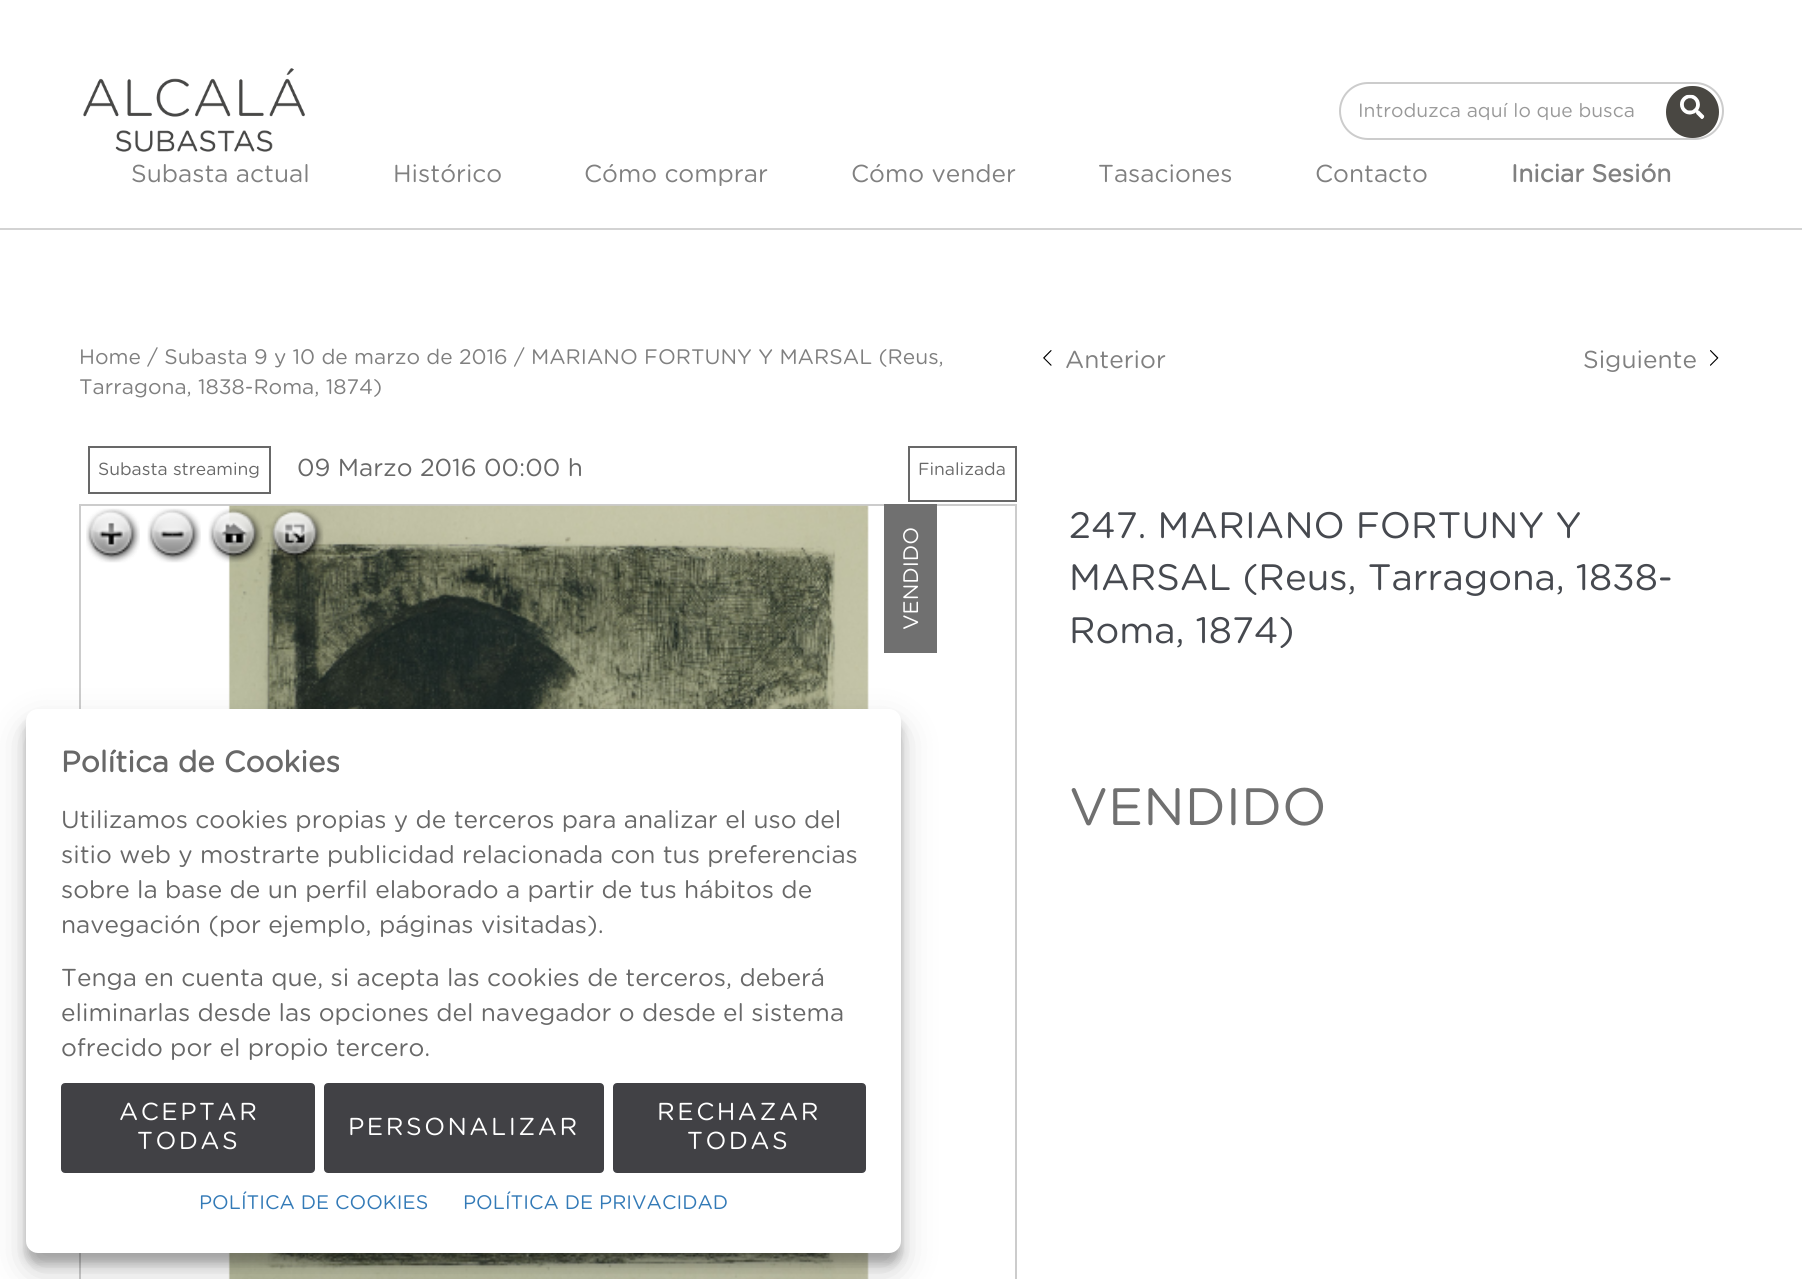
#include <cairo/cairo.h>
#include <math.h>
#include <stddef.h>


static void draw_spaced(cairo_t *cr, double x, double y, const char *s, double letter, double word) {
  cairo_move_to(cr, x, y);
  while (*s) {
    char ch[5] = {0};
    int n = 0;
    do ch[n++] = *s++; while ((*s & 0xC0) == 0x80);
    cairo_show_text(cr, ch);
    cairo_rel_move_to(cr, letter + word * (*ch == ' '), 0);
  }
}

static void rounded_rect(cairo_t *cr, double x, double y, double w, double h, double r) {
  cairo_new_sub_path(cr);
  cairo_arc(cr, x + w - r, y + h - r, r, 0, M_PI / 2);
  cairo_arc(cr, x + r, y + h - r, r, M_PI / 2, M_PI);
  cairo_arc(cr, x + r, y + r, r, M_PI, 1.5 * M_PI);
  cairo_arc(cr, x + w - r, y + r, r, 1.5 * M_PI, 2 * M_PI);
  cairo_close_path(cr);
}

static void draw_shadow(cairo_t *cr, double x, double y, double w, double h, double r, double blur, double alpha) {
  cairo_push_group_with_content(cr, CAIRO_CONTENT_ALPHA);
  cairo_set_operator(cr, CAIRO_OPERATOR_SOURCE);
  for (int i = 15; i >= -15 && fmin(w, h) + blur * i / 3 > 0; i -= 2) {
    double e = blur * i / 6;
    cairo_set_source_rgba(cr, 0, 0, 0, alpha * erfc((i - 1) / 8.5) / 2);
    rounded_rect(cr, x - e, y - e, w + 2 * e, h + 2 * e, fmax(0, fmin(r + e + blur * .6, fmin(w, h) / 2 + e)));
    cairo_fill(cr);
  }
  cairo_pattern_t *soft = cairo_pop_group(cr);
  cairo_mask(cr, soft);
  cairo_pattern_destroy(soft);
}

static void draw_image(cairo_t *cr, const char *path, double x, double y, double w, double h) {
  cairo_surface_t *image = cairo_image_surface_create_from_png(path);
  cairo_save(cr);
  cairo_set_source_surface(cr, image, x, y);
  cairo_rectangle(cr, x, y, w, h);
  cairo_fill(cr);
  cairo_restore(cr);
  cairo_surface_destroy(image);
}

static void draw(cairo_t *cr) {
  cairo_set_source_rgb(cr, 1, 1, 1);
  cairo_paint(cr);
  cairo_set_source_rgb(cr, 211 / 255.0, 211 / 255.0, 211 / 255.0);
  cairo_rectangle(cr, 0, 228, 1802, 2);
  cairo_fill(cr);
  draw_image(cr, "images/1.png", 83, 68, 222, 84);
  rounded_rect(cr, 1340, 83, 383, 56, 28);
  cairo_set_source_rgb(cr, 204 / 255.0, 204 / 255.0, 204 / 255.0);
  cairo_stroke(cr);
  cairo_set_source_rgb(cr, 73 / 255.0, 71 / 255.0, 66 / 255.0);
  rounded_rect(cr, 1666, 86, 53, 52, 26);
  cairo_fill(cr);
  draw_image(cr, "images/2.png", 1680, 94, 25, 25);
  draw_image(cr, "images/3.png", 1043, 350, 9, 16);
  draw_image(cr, "images/4.png", 1710, 350, 9, 16);
  cairo_rectangle(cr, 89, 447, 181, 46);
  cairo_set_source_rgb(cr, 104 / 255.0, 104 / 255.0, 104 / 255.0);
  cairo_stroke(cr);
  cairo_rectangle(cr, 909, 447, 107, 54);
  cairo_stroke(cr);
  cairo_rectangle(cr, 80, 505, 936, 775);
  cairo_set_source_rgb(cr, 204 / 255.0, 204 / 255.0, 204 / 255.0);
  cairo_stroke(cr);
  draw_image(cr, "images/5.png", 86, 508, 54, 55);
  draw_image(cr, "images/6.png", 86, 509, 54, 53);
  draw_image(cr, "images/7.png", 147, 508, 54, 55);
  draw_image(cr, "images/8.png", 148, 509, 53, 53);
  draw_image(cr, "images/13.png", 228, 505, 641, 774);
  draw_image(cr, "images/9.png", 208, 508, 55, 55);
  draw_image(cr, "images/10.png", 209, 509, 53, 53);
  draw_image(cr, "images/11.png", 269, 508, 55, 53);
  draw_image(cr, "images/12.png", 270, 509, 53, 51);
  cairo_set_source_rgb(cr, 112 / 255.0, 112 / 255.0, 112 / 255.0);
  cairo_rectangle(cr, 884, 504, 53, 149);
  cairo_fill(cr);
  cairo_set_source_rgb(cr, 0, 0, 0);
  draw_shadow(cr, 26, 719, 875, 545, 12, 5, 0.23);
  draw_shadow(cr, 26, 726, 875, 545, 12, 17.5, 0.19);
  cairo_set_source_rgb(cr, 1, 1, 1);
  rounded_rect(cr, 26, 709, 875, 544, 12);
  cairo_fill(cr);
  cairo_set_source_rgb(cr, 65 / 255.0, 65 / 255.0, 69 / 255.0);
  rounded_rect(cr, 62, 1084, 252, 88, 3);
  cairo_fill_preserve(cr);
  cairo_stroke(cr);
  rounded_rect(cr, 325, 1084, 278, 88, 3);
  cairo_fill_preserve(cr);
  cairo_stroke(cr);
  rounded_rect(cr, 614, 1084, 251, 88, 3);
  cairo_fill_preserve(cr);
  cairo_stroke(cr);
  cairo_select_font_face(cr, "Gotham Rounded", CAIRO_FONT_SLANT_NORMAL, CAIRO_FONT_WEIGHT_NORMAL);
  cairo_set_font_size(cr, 19.25);
  cairo_set_source_rgb(cr, 153 / 255.0, 153 / 255.0, 153 / 255.0);
  cairo_move_to(cr, 1358, 117);
  cairo_show_text(cr, "Introduzca aquí lo que busca");
  cairo_set_font_size(cr, 24.5);
  cairo_set_source_rgb(cr, 128 / 255.0, 128 / 255.0, 128 / 255.0);
  cairo_move_to(cr, 131, 182);
  cairo_show_text(cr, "Subasta actual");
  cairo_move_to(cr, 393, 182);
  cairo_show_text(cr, "Histórico");
  cairo_move_to(cr, 584, 182);
  cairo_show_text(cr, "Cómo comprar");
  cairo_move_to(cr, 851, 182);
  cairo_show_text(cr, "Cómo vender");
  cairo_move_to(cr, 1098, 182);
  cairo_show_text(cr, "Tasaciones");
  cairo_move_to(cr, 1315, 182);
  cairo_show_text(cr, "Contacto");
  cairo_select_font_face(cr, "Gotham Rounded", CAIRO_FONT_SLANT_NORMAL, CAIRO_FONT_WEIGHT_BOLD);
  cairo_move_to(cr, 1511, 182);
  cairo_show_text(cr, "Iniciar Sesión");
  cairo_select_font_face(cr, "Gotham Rounded", CAIRO_FONT_SLANT_NORMAL, CAIRO_FONT_WEIGHT_NORMAL);
  cairo_set_font_size(cr, 21);
  cairo_move_to(cr, 79, 364);
  cairo_show_text(cr, "Home / Subasta 9 y 10 de marzo de 2016 / MARIANO FORTUNY Y MARSAL (Reus,");
  cairo_move_to(cr, 79, 394);
  cairo_show_text(cr, "Tarragona, 1838-Roma, 1874)");
  cairo_set_font_size(cr, 24.5);
  cairo_move_to(cr, 1065, 368);
  cairo_show_text(cr, "Anterior");
  cairo_move_to(cr, 1583, 368);
  cairo_show_text(cr, "Siguiente");
  cairo_set_font_size(cr, 17.5);
  cairo_set_source_rgb(cr, 104 / 255.0, 104 / 255.0, 104 / 255.0);
  cairo_move_to(cr, 98, 475);
  cairo_show_text(cr, "Subasta streaming");
  cairo_set_font_size(cr, 24.5);
  cairo_move_to(cr, 297, 476);
  cairo_show_text(cr, "09 Marzo 2016 00:00 h");
  cairo_set_font_size(cr, 17.5);
  cairo_move_to(cr, 918, 475);
  cairo_show_text(cr, "Finalizada");
  cairo_set_font_size(cr, 21);
  cairo_set_source_rgb(cr, 1, 1, 1);
  cairo_save(cr);
  cairo_translate(cr, 918, 630);
  cairo_rotate(cr, -90 * M_PI / 180);
  cairo_move_to(cr, 0, 0);
  cairo_show_text(cr, "VENDIDO");
  cairo_restore(cr);
  cairo_set_font_size(cr, 36.75);
  cairo_set_source_rgb(cr, 70 / 255.0, 73 / 255.0, 79 / 255.0);
  cairo_move_to(cr, 1069, 538);
  cairo_show_text(cr, "247. MARIANO FORTUNY Y");
  cairo_move_to(cr, 1069, 590);
  cairo_show_text(cr, "MARSAL (Reus, Tarragona, 1838-");
  cairo_move_to(cr, 1069, 643);
  cairo_show_text(cr, "Roma, 1874)");
  cairo_set_font_size(cr, 52.5);
  cairo_set_source_rgb(cr, 112 / 255.0, 112 / 255.0, 112 / 255.0);
  cairo_move_to(cr, 1069, 825);
  cairo_show_text(cr, "VENDIDO");
  cairo_select_font_face(cr, "Gotham Rounded", CAIRO_FONT_SLANT_NORMAL, CAIRO_FONT_WEIGHT_BOLD);
  cairo_set_font_size(cr, 29.5);
  cairo_set_source_rgb(cr, 104 / 255.0, 104 / 255.0, 104 / 255.0);
  cairo_move_to(cr, 61, 772);
  cairo_show_text(cr, "Política de Cookies");
  cairo_select_font_face(cr, "Gotham Rounded", CAIRO_FONT_SLANT_NORMAL, CAIRO_FONT_WEIGHT_NORMAL);
  cairo_set_font_size(cr, 24.5);
  cairo_move_to(cr, 61, 828);
  cairo_show_text(cr, "Utilizamos cookies propias y de terceros para analizar el uso del");
  cairo_move_to(cr, 61, 863);
  cairo_show_text(cr, "sitio web y mostrarte publicidad relacionada con tus preferencias");
  cairo_move_to(cr, 61, 898);
  cairo_show_text(cr, "sobre la base de un perfil elaborado a partir de tus hábitos de");
  cairo_move_to(cr, 61, 933);
  cairo_show_text(cr, "navegación (por ejemplo, páginas visitadas).");
  cairo_move_to(cr, 61, 986);
  cairo_show_text(cr, "Tenga en cuenta que, si acepta las cookies de terceros, deberá");
  cairo_move_to(cr, 61, 1021);
  cairo_show_text(cr, "eliminarlas desde las opciones del navegador o desde el sistema");
  cairo_move_to(cr, 61, 1056);
  cairo_show_text(cr, "ofrecido por el propio tercero.");
  cairo_set_source_rgb(cr, 1, 1, 1);
  draw_spaced(cr, 119, 1120, "ACEPTAR", 2.5, 0);
  draw_spaced(cr, 137, 1149, "TODAS", 2.5, 0);
  draw_spaced(cr, 348, 1135, "PERSONALIZAR", 2.5, 0);
  draw_spaced(cr, 657, 1120, "RECHAZAR", 2.5, 0);
  draw_spaced(cr, 687, 1149, "TODAS", 2.5, 0);
  cairo_set_font_size(cr, 19.6);
  cairo_set_source_rgb(cr, 51 / 255.0, 122 / 255.0, 183 / 255.0);
  cairo_move_to(cr, 199, 1209);
  cairo_show_text(cr, "POLÍTICA DE COOKIES");
  cairo_move_to(cr, 463, 1209);
  cairo_show_text(cr, "POLÍTICA DE PRIVACIDAD");
}

int main(void) {
  cairo_surface_t *surface = cairo_image_surface_create(CAIRO_FORMAT_RGB24, 1802, 1279);
  cairo_t *cr = cairo_create(surface);
  cairo_font_options_t *options = cairo_font_options_create();
  cairo_font_options_set_hint_metrics(options, CAIRO_HINT_METRICS_OFF);
  cairo_font_options_set_hint_style(options, CAIRO_HINT_STYLE_NONE);
  cairo_set_font_options(cr, options);
  cairo_set_miter_limit(cr, 4);
  draw(cr);
  cairo_surface_write_to_png(surface, "out.png");
  cairo_font_options_destroy(options);
  cairo_destroy(cr);
  cairo_surface_destroy(surface);
  return 0;
}
